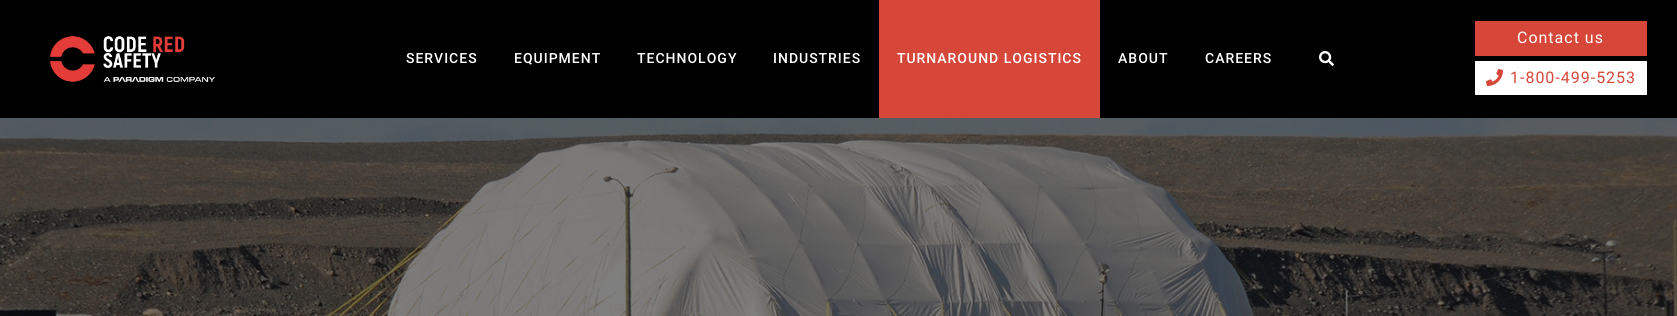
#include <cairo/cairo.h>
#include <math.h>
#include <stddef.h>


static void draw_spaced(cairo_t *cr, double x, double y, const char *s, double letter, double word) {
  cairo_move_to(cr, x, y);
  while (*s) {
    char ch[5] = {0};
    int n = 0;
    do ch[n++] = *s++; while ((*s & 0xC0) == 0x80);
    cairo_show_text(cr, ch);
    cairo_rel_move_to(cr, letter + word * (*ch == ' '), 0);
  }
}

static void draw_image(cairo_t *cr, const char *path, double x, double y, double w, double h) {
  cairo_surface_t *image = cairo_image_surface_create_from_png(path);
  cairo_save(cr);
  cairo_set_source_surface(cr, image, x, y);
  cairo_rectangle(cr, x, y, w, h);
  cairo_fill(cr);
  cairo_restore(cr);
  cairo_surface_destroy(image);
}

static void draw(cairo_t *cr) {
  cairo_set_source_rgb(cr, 1, 1, 1);
  cairo_paint(cr);
  cairo_set_source_rgb(cr, 0, 0, 0);
  cairo_rectangle(cr, 0, 0, 1677, 118);
  cairo_fill(cr);
  draw_image(cr, "images/1.png", 50, 36, 165, 46);
  cairo_set_source_rgb(cr, 214 / 255.0, 71 / 255.0, 57 / 255.0);
  cairo_rectangle(cr, 879, 0, 221, 118);
  cairo_fill(cr);
  draw_image(cr, "images/2.png", 1319, 51, 15, 15);
  cairo_rectangle(cr, 1475, 21, 172, 35);
  cairo_fill(cr);
  cairo_set_source_rgb(cr, 1, 1, 1);
  cairo_rectangle(cr, 1475, 61, 172, 34);
  cairo_fill(cr);
  draw_image(cr, "images/3.png", 1486, 69, 17, 17);
  draw_image(cr, "images/4.png", 0, 118, 1677, 198);
  cairo_select_font_face(cr, "Roboto Medium", CAIRO_FONT_SLANT_NORMAL, CAIRO_FONT_WEIGHT_NORMAL);
  cairo_set_font_size(cr, 14);
  draw_spaced(cr, 406, 63, "SERVICES", 1, 0);
  draw_spaced(cr, 514, 63, "EQUIPMENT", 1, 0);
  draw_spaced(cr, 637, 63, "TECHNOLOGY", 1, 0);
  draw_spaced(cr, 773, 63, "INDUSTRIES", 1, 0);
  draw_spaced(cr, 897, 63, "TURNAROUND LOGISTICS", 1, 0);
  draw_spaced(cr, 1118, 63, "ABOUT", 1, 0);
  draw_spaced(cr, 1205, 63, "CAREERS", 1, 0);
  cairo_select_font_face(cr, "Roboto", CAIRO_FONT_SLANT_NORMAL, CAIRO_FONT_WEIGHT_NORMAL);
  cairo_set_font_size(cr, 16);
  draw_spaced(cr, 1517, 43, "Contact us", 1, 0);
  cairo_set_source_rgb(cr, 214 / 255.0, 71 / 255.0, 57 / 255.0);
  draw_spaced(cr, 1510, 83, "1-800-499-5253", 1, 0);
}

int main(void) {
  cairo_surface_t *surface = cairo_image_surface_create(CAIRO_FORMAT_RGB24, 1677, 316);
  cairo_t *cr = cairo_create(surface);
  cairo_font_options_t *options = cairo_font_options_create();
  cairo_font_options_set_hint_metrics(options, CAIRO_HINT_METRICS_OFF);
  cairo_font_options_set_hint_style(options, CAIRO_HINT_STYLE_NONE);
  cairo_set_font_options(cr, options);
  cairo_set_miter_limit(cr, 4);
  draw(cr);
  cairo_surface_write_to_png(surface, "out.png");
  cairo_font_options_destroy(options);
  cairo_destroy(cr);
  cairo_surface_destroy(surface);
  return 0;
}
